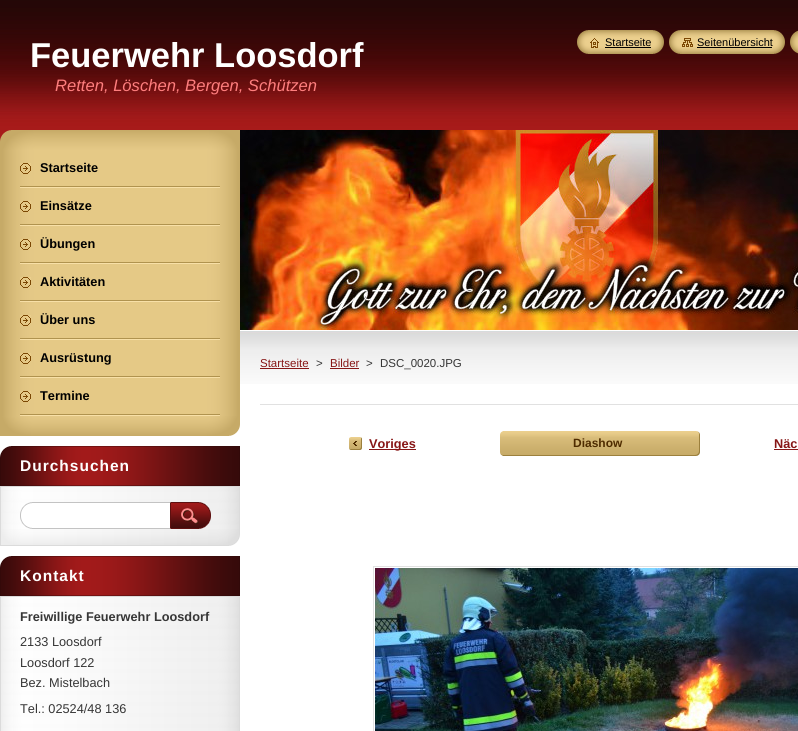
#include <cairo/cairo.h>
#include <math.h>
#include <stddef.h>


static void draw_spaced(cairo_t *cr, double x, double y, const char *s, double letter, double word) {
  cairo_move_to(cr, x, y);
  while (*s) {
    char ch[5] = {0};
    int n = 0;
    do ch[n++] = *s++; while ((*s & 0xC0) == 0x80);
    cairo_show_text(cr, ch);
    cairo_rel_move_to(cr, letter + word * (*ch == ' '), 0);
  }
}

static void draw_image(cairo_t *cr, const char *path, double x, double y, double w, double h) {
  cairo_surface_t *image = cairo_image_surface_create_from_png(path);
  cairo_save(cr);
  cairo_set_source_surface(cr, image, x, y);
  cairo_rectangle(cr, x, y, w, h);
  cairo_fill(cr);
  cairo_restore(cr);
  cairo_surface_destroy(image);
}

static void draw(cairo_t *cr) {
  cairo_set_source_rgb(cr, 1, 1, 1);
  cairo_paint(cr);
  draw_image(cr, "images/1.png", 0, 0, 798, 384);
  draw_image(cr, "images/2.png", 577, 30, 13, 24);
  draw_image(cr, "images/3.png", 590, 30, 74, 24);
  draw_image(cr, "images/4.png", 590, 38, 9, 10);
  cairo_set_source_rgb(cr, 0, 0, 0);
  cairo_rectangle(cr, 605, 47, 46, 1);
  cairo_fill(cr);
  draw_image(cr, "images/2.png", 669, 30, 13, 24);
  draw_image(cr, "images/5.png", 682, 30, 103, 24);
  draw_image(cr, "images/6.png", 682, 38, 11, 9);
  cairo_rectangle(cr, 697, 47, 75, 1);
  cairo_fill(cr);
  draw_image(cr, "images/7.png", 790, 30, 8, 24);
  draw_image(cr, "images/8.png", 0, 130, 240, 20);
  draw_image(cr, "images/9.png", 0, 416, 240, 20);
  draw_image(cr, "images/10.png", 0, 150, 240, 266);
  draw_image(cr, "images/11.png", 20, 186, 200, 2);
  draw_image(cr, "images/12.png", 20, 163, 11, 11);
  draw_image(cr, "images/11.png", 20, 224, 200, 2);
  draw_image(cr, "images/12.png", 20, 201, 11, 11);
  draw_image(cr, "images/11.png", 20, 262, 200, 2);
  draw_image(cr, "images/12.png", 20, 239, 11, 11);
  draw_image(cr, "images/11.png", 20, 300, 200, 2);
  draw_image(cr, "images/12.png", 20, 277, 11, 11);
  draw_image(cr, "images/11.png", 20, 338, 200, 2);
  draw_image(cr, "images/12.png", 20, 315, 11, 11);
  draw_image(cr, "images/11.png", 20, 376, 200, 2);
  draw_image(cr, "images/12.png", 20, 353, 11, 11);
  draw_image(cr, "images/11.png", 20, 414, 200, 2);
  draw_image(cr, "images/12.png", 20, 391, 11, 11);
  draw_image(cr, "images/13.png", 0, 529, 240, 17);
  draw_image(cr, "images/14.png", 0, 446, 240, 40);
  draw_image(cr, "images/15.png", 0, 487, 240, 42);
  cairo_set_source_rgb(cr, 219 / 255.0, 219 / 255.0, 219 / 255.0);
  cairo_rectangle(cr, 0, 486, 240, 1);
  cairo_fill(cr);
  draw_image(cr, "images/16.png", 20, 502, 150, 27);
  draw_image(cr, "images/17.png", 170, 502, 41, 27);
  draw_image(cr, "images/14.png", 0, 556, 240, 40);
  draw_image(cr, "images/18.png", 0, 597, 240, 134);
  cairo_rectangle(cr, 0, 596, 240, 1);
  cairo_fill(cr);
  draw_image(cr, "images/19.png", 240, 130, 558, 200);
  cairo_set_source_rgb(cr, 135 / 255.0, 22 / 255.0, 22 / 255.0);
  cairo_rectangle(cr, 260, 368, 49, 1);
  cairo_fill(cr);
  cairo_rectangle(cr, 330, 368, 29, 1);
  cairo_fill(cr);
  cairo_set_source_rgb(cr, 225 / 255.0, 225 / 255.0, 225 / 255.0);
  cairo_rectangle(cr, 260, 404, 538, 1);
  cairo_fill(cr);
  draw_image(cr, "images/20.png", 349, 437, 13, 13);
  cairo_set_source_rgb(cr, 135 / 255.0, 22 / 255.0, 22 / 255.0);
  cairo_rectangle(cr, 369, 449, 47, 1);
  cairo_fill(cr);
  draw_image(cr, "images/21.png", 500, 431, 3, 25);
  draw_image(cr, "images/22.png", 503, 431, 197, 25);
  cairo_rectangle(cr, 774, 449, 24, 1);
  cairo_fill(cr);
  cairo_rectangle(cr, 373.5, 566.5, 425, 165);
  cairo_set_source_rgb(cr, 225 / 255.0, 225 / 255.0, 225 / 255.0);
  cairo_set_line_width(cr, 1);
  cairo_stroke(cr);
  draw_image(cr, "images/23.png", 375, 568, 423, 163);
  cairo_select_font_face(cr, "Liberation Sans", CAIRO_FONT_SLANT_NORMAL, CAIRO_FONT_WEIGHT_BOLD);
  cairo_set_font_size(cr, 34.5);
  cairo_set_source_rgb(cr, 1, 1, 1);
  cairo_move_to(cr, 30, 67);
  cairo_show_text(cr, "Feuerwehr Loosdorf");
  cairo_select_font_face(cr, "Liberation Sans", CAIRO_FONT_SLANT_ITALIC, CAIRO_FONT_WEIGHT_NORMAL);
  cairo_set_font_size(cr, 16.6);
  cairo_set_source_rgb(cr, 1, 126 / 255.0, 126 / 255.0);
  cairo_move_to(cr, 55, 91);
  cairo_show_text(cr, "Retten, Löschen, Bergen, Schützen");
  cairo_select_font_face(cr, "Liberation Sans", CAIRO_FONT_SLANT_NORMAL, CAIRO_FONT_WEIGHT_NORMAL);
  cairo_set_font_size(cr, 11);
  cairo_set_source_rgb(cr, 0, 0, 0);
  cairo_move_to(cr, 605, 46);
  cairo_show_text(cr, "Startseite");
  cairo_move_to(cr, 697, 46);
  cairo_show_text(cr, "Seitenübersicht");
  cairo_select_font_face(cr, "Liberation Sans", CAIRO_FONT_SLANT_NORMAL, CAIRO_FONT_WEIGHT_BOLD);
  cairo_set_font_size(cr, 12.75);
  cairo_move_to(cr, 40, 172);
  cairo_show_text(cr, "Startseite");
  cairo_move_to(cr, 40, 210);
  cairo_show_text(cr, "Einsätze");
  cairo_move_to(cr, 40, 248);
  cairo_show_text(cr, "Übungen");
  cairo_move_to(cr, 40, 286);
  cairo_show_text(cr, "Aktivitäten");
  cairo_move_to(cr, 40, 324);
  cairo_show_text(cr, "Über uns");
  cairo_move_to(cr, 40, 362);
  cairo_show_text(cr, "Ausrüstung");
  cairo_move_to(cr, 40, 400);
  cairo_show_text(cr, "Termine");
  cairo_set_font_size(cr, 15.5);
  cairo_set_source_rgb(cr, 1, 1, 1);
  draw_spaced(cr, 20, 471, "Durchsuchen", 1, 0);
  draw_spaced(cr, 20, 581, "Kontakt", 1, 0);
  cairo_set_font_size(cr, 12.75);
  cairo_set_source_rgb(cr, 54 / 255.0, 54 / 255.0, 54 / 255.0);
  cairo_move_to(cr, 20, 621);
  cairo_show_text(cr, "Freiwillige Feuerwehr Loosdorf");
  cairo_select_font_face(cr, "Liberation Sans", CAIRO_FONT_SLANT_NORMAL, CAIRO_FONT_WEIGHT_NORMAL);
  cairo_move_to(cr, 20, 646);
  cairo_show_text(cr, "2133 Loosdorf");
  cairo_move_to(cr, 20, 667);
  cairo_show_text(cr, "Loosdorf 122");
  cairo_move_to(cr, 20, 687);
  cairo_show_text(cr, "Bez. Mistelbach");
  cairo_move_to(cr, 20, 713);
  cairo_show_text(cr, "Tel.: 02524/48 136");
  cairo_set_font_size(cr, 11.5);
  cairo_set_source_rgb(cr, 135 / 255.0, 22 / 255.0, 22 / 255.0);
  cairo_move_to(cr, 260, 367);
  cairo_show_text(cr, "Startseite");
  cairo_set_source_rgb(cr, 54 / 255.0, 54 / 255.0, 54 / 255.0);
  cairo_move_to(cr, 316, 367);
  cairo_show_text(cr, ">");
  cairo_set_source_rgb(cr, 135 / 255.0, 22 / 255.0, 22 / 255.0);
  cairo_move_to(cr, 330, 367);
  cairo_show_text(cr, "Bilder");
  cairo_set_source_rgb(cr, 54 / 255.0, 54 / 255.0, 54 / 255.0);
  cairo_move_to(cr, 366, 367);
  cairo_show_text(cr, ">");
  cairo_move_to(cr, 380, 367);
  cairo_show_text(cr, "DSC_0020.JPG");
  cairo_select_font_face(cr, "Liberation Sans", CAIRO_FONT_SLANT_NORMAL, CAIRO_FONT_WEIGHT_BOLD);
  cairo_set_font_size(cr, 12.75);
  cairo_set_source_rgb(cr, 135 / 255.0, 22 / 255.0, 22 / 255.0);
  cairo_move_to(cr, 369, 448);
  cairo_show_text(cr, "Voriges");
  cairo_set_font_size(cr, 12);
  cairo_set_source_rgb(cr, 79 / 255.0, 44 / 255.0, 0);
  cairo_move_to(cr, 573, 447);
  cairo_show_text(cr, "Diashow");
  cairo_set_font_size(cr, 12.75);
  cairo_set_source_rgb(cr, 135 / 255.0, 22 / 255.0, 22 / 255.0);
  cairo_move_to(cr, 774, 448);
  cairo_show_text(cr, "Näc");
}

int main(void) {
  cairo_surface_t *surface = cairo_image_surface_create(CAIRO_FORMAT_RGB24, 798, 731);
  cairo_t *cr = cairo_create(surface);
  cairo_font_options_t *options = cairo_font_options_create();
  cairo_font_options_set_hint_metrics(options, CAIRO_HINT_METRICS_OFF);
  cairo_font_options_set_hint_style(options, CAIRO_HINT_STYLE_NONE);
  cairo_set_font_options(cr, options);
  cairo_set_miter_limit(cr, 4);
  draw(cr);
  cairo_surface_write_to_png(surface, "out.png");
  cairo_font_options_destroy(options);
  cairo_destroy(cr);
  cairo_surface_destroy(surface);
  return 0;
}
